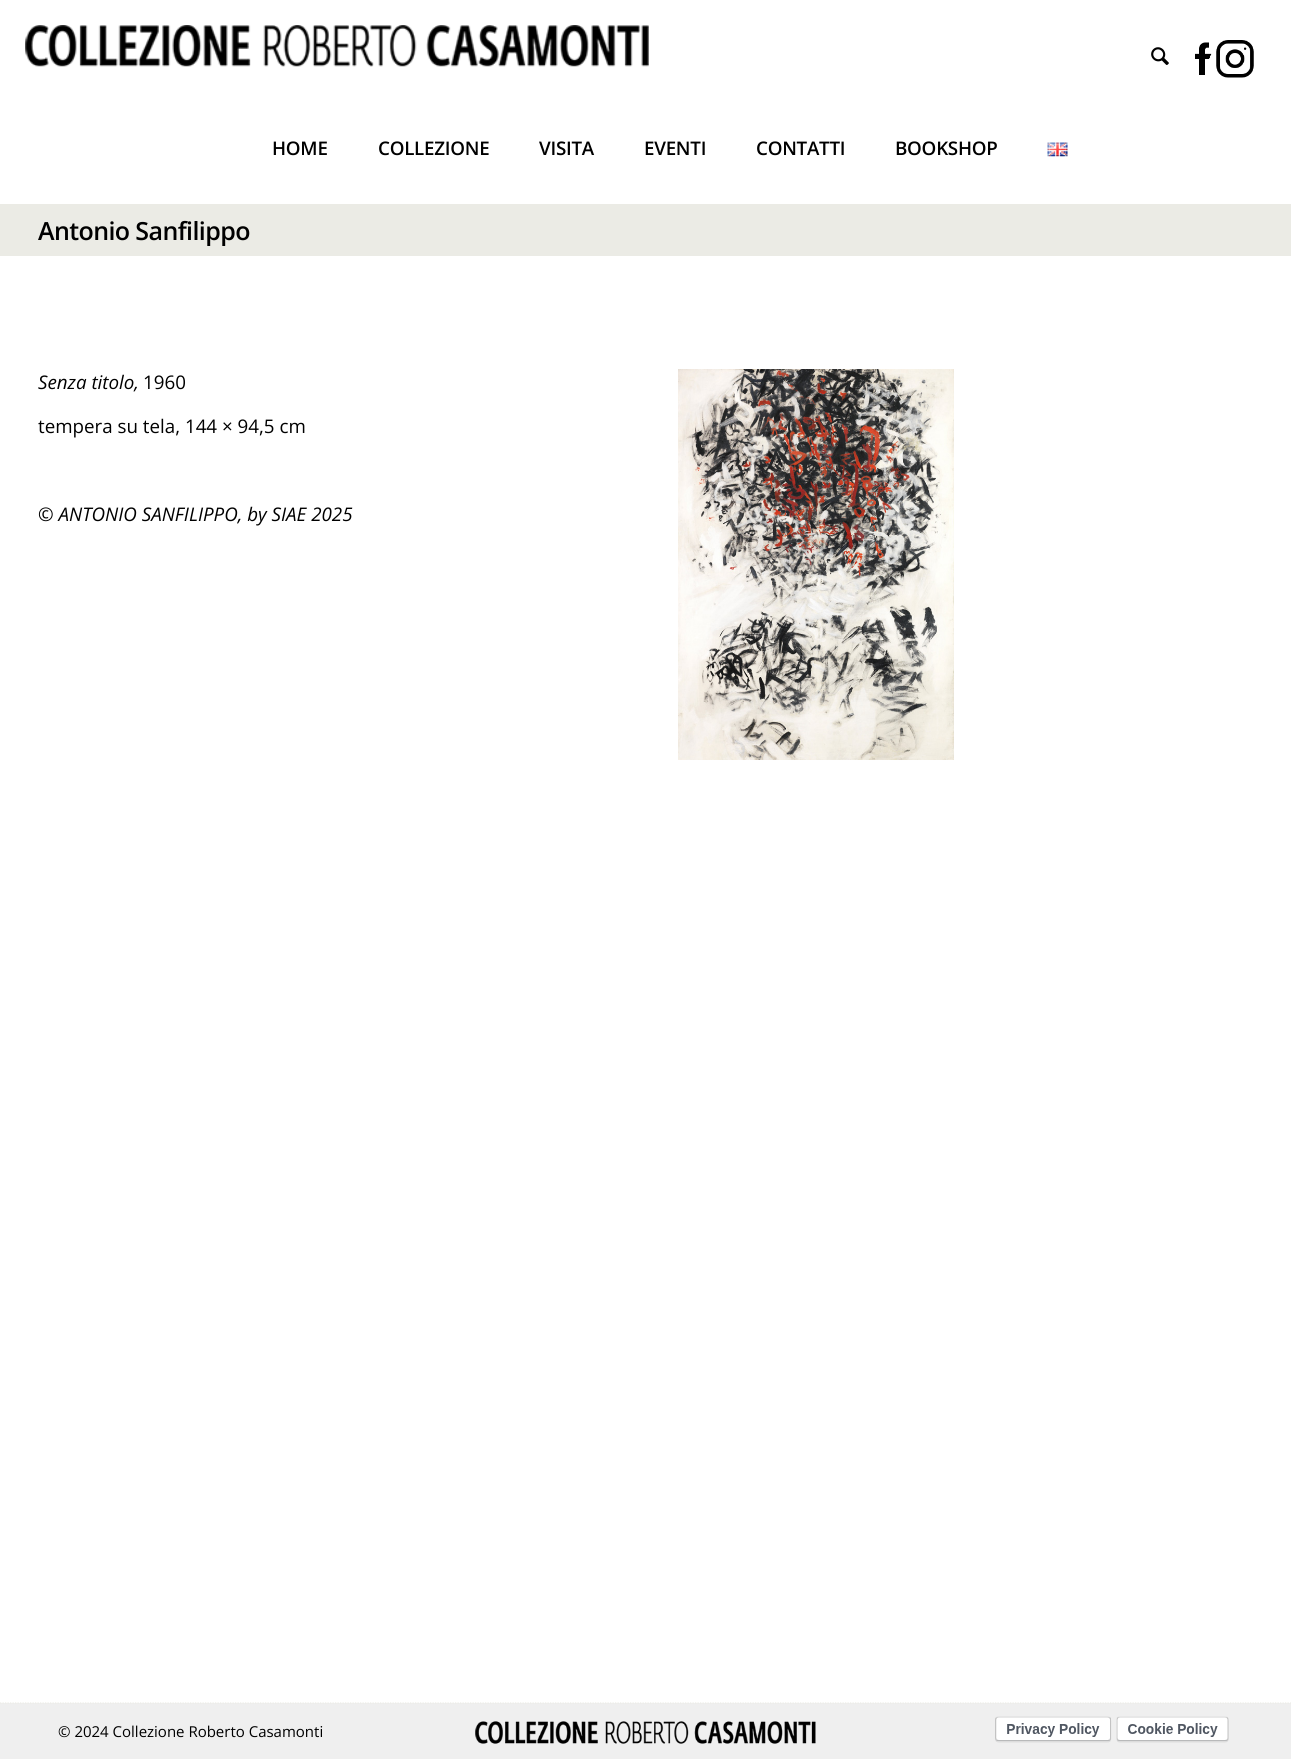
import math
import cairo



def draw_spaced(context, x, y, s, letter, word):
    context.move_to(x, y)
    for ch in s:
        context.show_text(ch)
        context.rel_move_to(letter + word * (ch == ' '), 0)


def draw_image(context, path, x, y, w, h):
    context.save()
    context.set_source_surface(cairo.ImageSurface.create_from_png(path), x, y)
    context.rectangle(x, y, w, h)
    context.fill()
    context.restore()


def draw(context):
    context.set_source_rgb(1, 1, 1)
    context.paint()
    draw_image(context, "images/1.png", 25, 25, 624, 42)
    draw_image(context, "images/2.png", 1151, 47, 18, 18)
    draw_image(context, "images/3.png", 1195, 42, 17, 33)
    draw_image(context, "images/4.png", 1216, 40, 38, 38)
    draw_image(context, "images/5.png", 1047, 142, 21, 15)
    context.set_source_rgb(235 / 255, 235 / 255, 229 / 255)
    context.rectangle(0, 204, 1291, 52)
    context.fill()
    draw_image(context, "images/6.png", 678, 369, 276, 391)
    context.set_source_rgb(239 / 255, 239 / 255, 239 / 255)
    context.rectangle(0, 1703, 1291, 56)
    context.fill()
    context.new_path()
    context.move_to(0, 1703)
    context.line_to(1291, 1703)
    context.set_source_rgb(235 / 255, 235 / 255, 229 / 255)
    context.set_line_width(1.2)
    context.set_dash([1.25, 1.25])
    context.stroke()
    draw_image(context, "images/7.png", 475, 1721, 341, 23)
    draw_image(context, "images/8.png", 995, 1716, 117, 27)
    draw_image(context, "images/9.png", 1116, 1716, 113, 27)
    context.select_font_face("Open Sans SemiBold")
    context.set_font_size(18.75)
    context.set_source_rgb(0, 0, 0)
    draw_spaced(context, 272, 155, "HOME", -0.25, 0)
    draw_spaced(context, 378, 155, "COLLEZIONE", -0.25, 0)
    draw_spaced(context, 539, 155, "VISITA", -0.25, 0)
    draw_spaced(context, 644, 155, "EVENTI", -0.25, 0)
    draw_spaced(context, 756, 155, "CONTATTI", -0.25, 0)
    draw_spaced(context, 895, 155, "BOOKSHOP", -0.25, 0)
    context.set_font_size(25)
    draw_spaced(context, 38, 240, "Antonio Sanfilippo", -0.6, 0)
    context.select_font_face("Open Sans", cairo.FontSlant.ITALIC)
    context.set_font_size(18.75)
    context.move_to(38, 389)
    context.show_text("Senza titolo,")
    context.select_font_face("Open Sans")
    context.move_to(143, 389)
    context.show_text("1960")
    context.move_to(38, 433)
    context.show_text("tempera su tela, 144 × 94,5 cm")
    context.select_font_face("Open Sans", cairo.FontSlant.ITALIC)
    context.move_to(38, 521)
    context.show_text("© ANTONIO SANFILIPPO, by SIAE 2025")
    context.select_font_face("Open Sans")
    context.set_font_size(15)
    context.move_to(58, 1737)
    context.show_text("© 2024 Collezione Roberto Casamonti")


surface = cairo.ImageSurface(cairo.Format.RGB24, 1291, 1759)
context = cairo.Context(surface)
options = cairo.FontOptions()
options.set_hint_metrics(cairo.HintMetrics.OFF)
options.set_hint_style(cairo.HintStyle.NONE)
context.set_font_options(options)
context.set_miter_limit(4)
draw(context)
surface.write_to_png("out.png")
